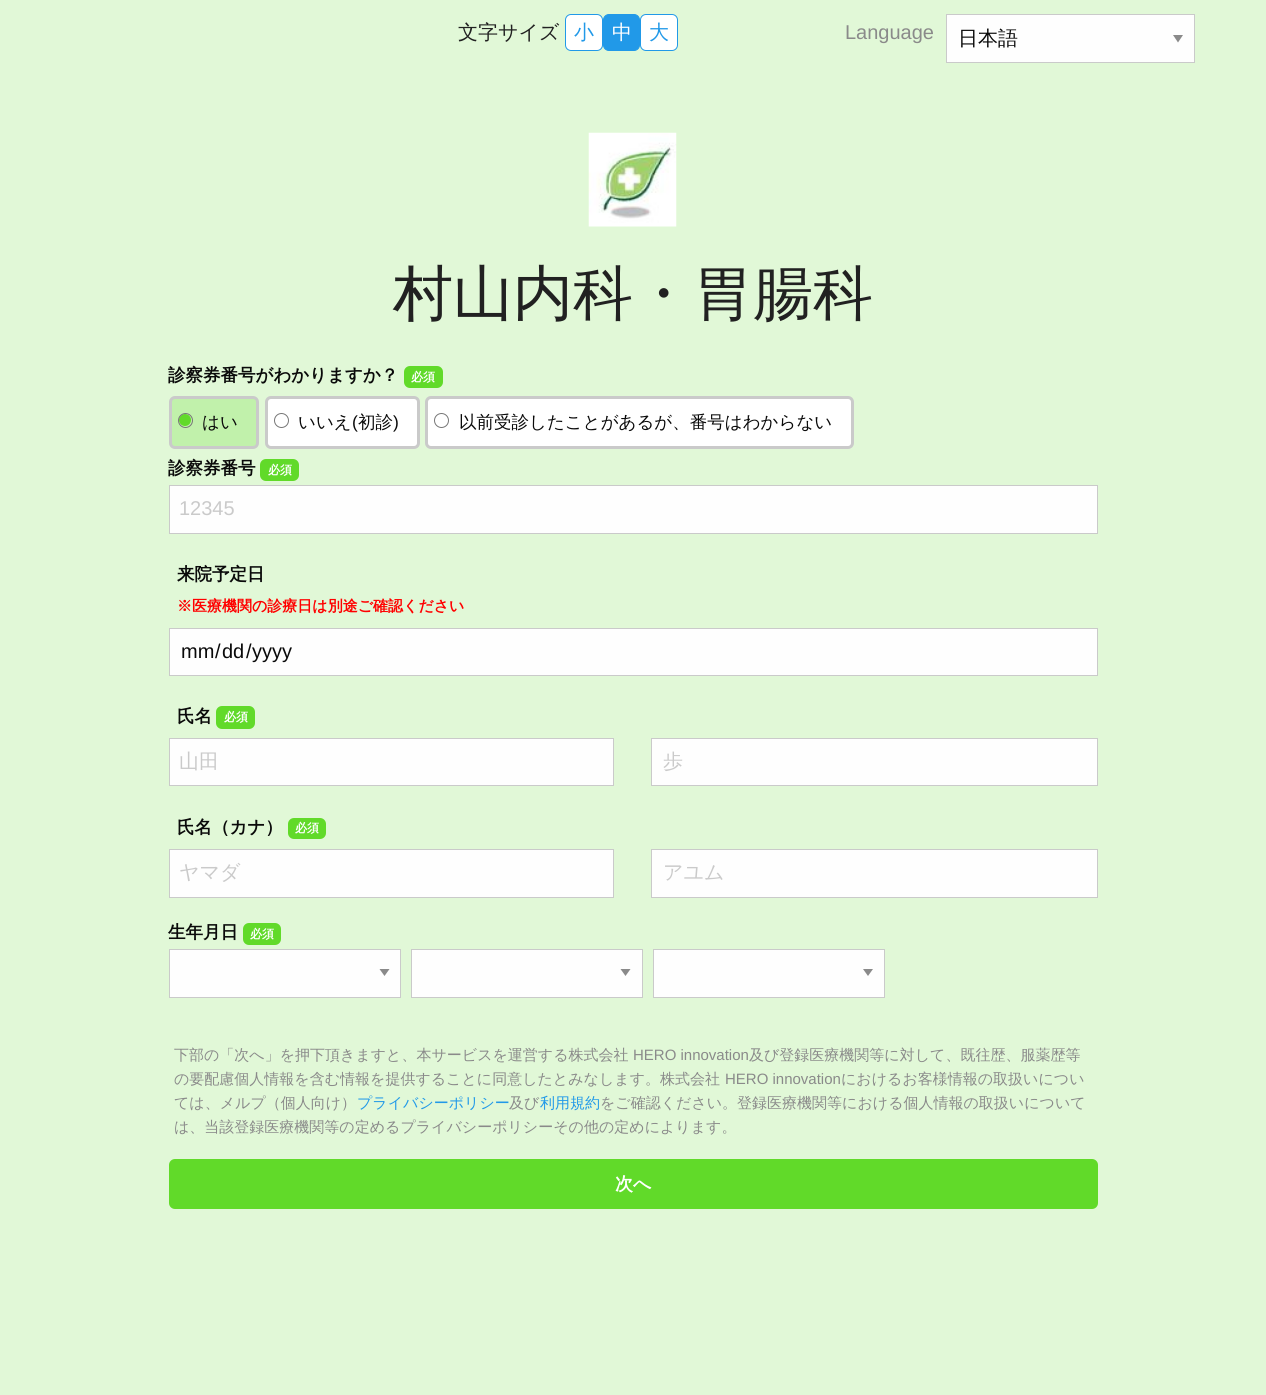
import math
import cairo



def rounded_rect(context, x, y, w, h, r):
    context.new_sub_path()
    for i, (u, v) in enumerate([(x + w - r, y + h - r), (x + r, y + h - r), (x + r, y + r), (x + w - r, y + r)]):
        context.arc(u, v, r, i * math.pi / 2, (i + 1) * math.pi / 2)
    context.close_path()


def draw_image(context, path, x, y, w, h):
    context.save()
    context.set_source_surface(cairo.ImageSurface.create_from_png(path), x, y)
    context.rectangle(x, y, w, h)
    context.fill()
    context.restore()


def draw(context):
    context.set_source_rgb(225 / 255, 248 / 255, 215 / 255)
    context.paint()
    context.set_source_rgb(1, 1, 1)
    rounded_rect(context, 565.5, 14.5, 37, 36, 5.5)
    context.fill_preserve()
    context.set_source_rgb(33 / 255, 153 / 255, 232 / 255)
    context.set_line_width(1)
    context.stroke()
    rounded_rect(context, 603.5, 14.5, 36, 36, 5.5)
    context.fill_preserve()
    context.stroke()
    context.set_source_rgb(1, 1, 1)
    rounded_rect(context, 640.5, 14.5, 37, 36, 5.5)
    context.fill_preserve()
    context.set_source_rgb(33 / 255, 153 / 255, 232 / 255)
    context.stroke()
    context.set_source_rgb(254 / 255, 254 / 255, 254 / 255)
    context.rectangle(947, 15, 247, 47)
    context.fill()
    context.set_source_rgb(138 / 255, 138 / 255, 138 / 255)
    context.new_path()
    context.move_to(1173, 35)
    context.line_to(1183, 35)
    context.line_to(1178, 42.5)
    context.close_path()
    context.fill()
    context.rectangle(946.5, 14.5, 248, 48)
    context.set_source_rgb(202 / 255, 202 / 255, 202 / 255)
    context.stroke()
    draw_image(context, "images/1.png", 588, 132, 89, 95)
    context.set_source_rgb(97 / 255, 218 / 255, 41 / 255)
    rounded_rect(context, 404, 366, 39, 22, 6)
    context.fill()
    context.set_source_rgb(193 / 255, 241 / 255, 171 / 255)
    rounded_rect(context, 170.5, 397.5, 87, 50, 4.5)
    context.fill_preserve()
    context.set_source_rgb(202 / 255, 202 / 255, 202 / 255)
    context.set_line_width(3)
    context.stroke()
    context.set_source_rgb(97 / 255, 218 / 255, 41 / 255)
    context.arc(185, 420, 6, 0, 2 * math.pi)
    context.fill()
    context.arc(185.5, 420.5, 7, 0, 2 * math.pi)
    context.set_source_rgb(119 / 255, 119 / 255, 119 / 255)
    context.set_line_width(1)
    context.stroke()
    context.set_source_rgb(1, 1, 1)
    rounded_rect(context, 266.5, 397.5, 152, 50, 4.5)
    context.fill_preserve()
    context.set_source_rgb(202 / 255, 202 / 255, 202 / 255)
    context.set_line_width(3)
    context.stroke()
    context.arc(281.5, 420.5, 7, 0, 2 * math.pi)
    context.set_source_rgb(119 / 255, 119 / 255, 119 / 255)
    context.set_line_width(1)
    context.stroke()
    context.set_source_rgb(1, 1, 1)
    rounded_rect(context, 426.5, 397.5, 426, 50, 4.5)
    context.fill_preserve()
    context.set_source_rgb(202 / 255, 202 / 255, 202 / 255)
    context.set_line_width(3)
    context.stroke()
    context.arc(441.5, 420.5, 7, 0, 2 * math.pi)
    context.set_source_rgb(119 / 255, 119 / 255, 119 / 255)
    context.set_line_width(1)
    context.stroke()
    context.set_source_rgb(97 / 255, 218 / 255, 41 / 255)
    rounded_rect(context, 260, 459, 39, 22, 6)
    context.fill()
    context.set_source_rgb(254 / 255, 254 / 255, 254 / 255)
    context.rectangle(169.5, 485.5, 928, 48)
    context.fill_preserve()
    context.set_source_rgb(202 / 255, 202 / 255, 202 / 255)
    context.stroke()
    context.set_source_rgb(254 / 255, 254 / 255, 254 / 255)
    context.rectangle(169.5, 628.5, 928, 47)
    context.fill_preserve()
    context.set_source_rgb(202 / 255, 202 / 255, 202 / 255)
    context.stroke()
    context.set_source_rgb(97 / 255, 218 / 255, 41 / 255)
    rounded_rect(context, 216, 706, 39, 23, 6)
    context.fill()
    context.set_source_rgb(254 / 255, 254 / 255, 254 / 255)
    context.rectangle(169.5, 738.5, 444, 47)
    context.fill_preserve()
    context.set_source_rgb(202 / 255, 202 / 255, 202 / 255)
    context.stroke()
    context.set_source_rgb(254 / 255, 254 / 255, 254 / 255)
    context.rectangle(651.5, 738.5, 446, 47)
    context.fill_preserve()
    context.set_source_rgb(202 / 255, 202 / 255, 202 / 255)
    context.stroke()
    context.set_source_rgb(97 / 255, 218 / 255, 41 / 255)
    rounded_rect(context, 288, 818, 38, 21, 6)
    context.fill()
    context.set_source_rgb(254 / 255, 254 / 255, 254 / 255)
    context.rectangle(169.5, 849.5, 444, 48)
    context.fill_preserve()
    context.set_source_rgb(202 / 255, 202 / 255, 202 / 255)
    context.stroke()
    context.set_source_rgb(254 / 255, 254 / 255, 254 / 255)
    context.rectangle(651.5, 849.5, 446, 48)
    context.fill_preserve()
    context.set_source_rgb(202 / 255, 202 / 255, 202 / 255)
    context.stroke()
    context.set_source_rgb(97 / 255, 218 / 255, 41 / 255)
    rounded_rect(context, 243, 923, 38, 22, 6)
    context.fill()
    context.set_source_rgb(254 / 255, 254 / 255, 254 / 255)
    context.rectangle(170, 950, 230, 47)
    context.fill()
    context.set_source_rgb(138 / 255, 138 / 255, 138 / 255)
    context.new_path()
    context.move_to(379.5, 969)
    context.line_to(389.5, 969)
    context.line_to(384.5, 976)
    context.close_path()
    context.fill()
    context.rectangle(169.5, 949.5, 231, 48)
    context.set_source_rgb(202 / 255, 202 / 255, 202 / 255)
    context.stroke()
    context.set_source_rgb(254 / 255, 254 / 255, 254 / 255)
    context.rectangle(412, 950, 230, 47)
    context.fill()
    context.set_source_rgb(138 / 255, 138 / 255, 138 / 255)
    context.new_path()
    context.move_to(620.5, 969)
    context.line_to(630.5, 969)
    context.line_to(625.5, 976)
    context.close_path()
    context.fill()
    context.rectangle(411.5, 949.5, 231, 48)
    context.set_source_rgb(202 / 255, 202 / 255, 202 / 255)
    context.stroke()
    context.set_source_rgb(254 / 255, 254 / 255, 254 / 255)
    context.rectangle(654, 950, 230, 47)
    context.fill()
    context.set_source_rgb(138 / 255, 138 / 255, 138 / 255)
    context.new_path()
    context.move_to(863, 969)
    context.line_to(873, 969)
    context.line_to(868, 976)
    context.close_path()
    context.fill()
    context.rectangle(653.5, 949.5, 231, 48)
    context.set_source_rgb(202 / 255, 202 / 255, 202 / 255)
    context.stroke()
    context.set_source_rgb(97 / 255, 218 / 255, 41 / 255)
    rounded_rect(context, 169, 1159, 929, 50, 6)
    context.fill()
    context.select_font_face("WenQuanYi Zen Hei Medium")
    context.set_font_size(20)
    context.set_source_rgb(33 / 255, 33 / 255, 33 / 255)
    context.move_to(458, 39)
    context.show_text("文字サイズ")
    context.set_source_rgb(33 / 255, 153 / 255, 232 / 255)
    context.move_to(574, 39)
    context.show_text("小")
    context.set_source_rgb(1, 1, 1)
    context.move_to(612, 39)
    context.show_text("中")
    context.set_source_rgb(33 / 255, 153 / 255, 232 / 255)
    context.move_to(649, 39)
    context.show_text("大")
    context.select_font_face("Liberation Sans")
    context.set_source_rgb(138 / 255, 138 / 255, 138 / 255)
    context.move_to(845, 39)
    context.show_text("Language")
    context.select_font_face("WenQuanYi Zen Hei Medium")
    context.set_source_rgb(10 / 255, 10 / 255, 10 / 255)
    context.move_to(958, 45)
    context.show_text("日本語")
    context.set_font_size(60)
    context.set_source_rgb(33 / 255, 33 / 255, 33 / 255)
    context.move_to(393, 314)
    context.show_text("村山内科・胃腸科")
    context.select_font_face("WenQuanYi Zen Hei", cairo.FontSlant.NORMAL, cairo.FontWeight.BOLD)
    context.set_font_size(17.5)
    context.set_source_rgb(10 / 255, 10 / 255, 10 / 255)
    context.move_to(168, 381)
    context.show_text("診察券番号がわかりますか？")
    context.set_font_size(12)
    context.set_source_rgb(1, 1, 1)
    context.move_to(411, 381)
    context.show_text("必須")
    context.select_font_face("WenQuanYi Zen Hei Medium")
    context.set_font_size(17.5)
    context.set_source_rgb(10 / 255, 10 / 255, 10 / 255)
    context.move_to(202, 428)
    context.show_text("はい")
    context.move_to(298, 428)
    context.show_text("いいえ")
    context.select_font_face("Liberation Sans")
    context.move_to(352, 428)
    context.show_text("(")
    context.select_font_face("WenQuanYi Zen Hei Medium")
    context.move_to(358, 428)
    context.show_text("初診")
    context.select_font_face("Liberation Sans")
    context.move_to(393, 428)
    context.show_text(")")
    context.select_font_face("WenQuanYi Zen Hei Medium")
    context.move_to(459, 428)
    context.show_text("以前受診したことがあるが、番号はわからない")
    context.select_font_face("WenQuanYi Zen Hei", cairo.FontSlant.NORMAL, cairo.FontWeight.BOLD)
    context.move_to(168, 474)
    context.show_text("診察券番号")
    context.set_font_size(12)
    context.set_source_rgb(1, 1, 1)
    context.move_to(268, 474)
    context.show_text("必須")
    context.select_font_face("Liberation Sans")
    context.set_font_size(20)
    context.set_source_rgb(202 / 255, 202 / 255, 202 / 255)
    context.move_to(179, 515)
    context.show_text("12345")
    context.select_font_face("WenQuanYi Zen Hei", cairo.FontSlant.NORMAL, cairo.FontWeight.BOLD)
    context.set_font_size(17.5)
    context.set_source_rgb(10 / 255, 10 / 255, 10 / 255)
    context.move_to(177, 580)
    context.show_text("来院予定日")
    context.set_font_size(15)
    context.set_source_rgb(1, 0, 0)
    context.move_to(177, 611)
    context.show_text("※医療機関の診療日は別途ご確認ください")
    context.select_font_face("Liberation Sans")
    context.set_font_size(20)
    context.set_source_rgb(10 / 255, 10 / 255, 10 / 255)
    context.move_to(181, 658)
    context.show_text("mm")
    context.move_to(215, 658)
    context.show_text("/")
    context.move_to(222, 658)
    context.show_text("dd")
    context.move_to(246, 658)
    context.show_text("/")
    context.move_to(252, 658)
    context.show_text("yyyy")
    context.select_font_face("WenQuanYi Zen Hei", cairo.FontSlant.NORMAL, cairo.FontWeight.BOLD)
    context.set_font_size(17.5)
    context.move_to(177, 722)
    context.show_text("氏名")
    context.set_font_size(12)
    context.set_source_rgb(1, 1, 1)
    context.move_to(224, 721)
    context.show_text("必須")
    context.select_font_face("WenQuanYi Zen Hei Medium")
    context.set_font_size(20)
    context.set_source_rgb(202 / 255, 202 / 255, 202 / 255)
    context.move_to(179, 768)
    context.show_text("山田")
    context.move_to(663, 768)
    context.show_text("歩")
    context.select_font_face("WenQuanYi Zen Hei", cairo.FontSlant.NORMAL, cairo.FontWeight.BOLD)
    context.set_font_size(17.5)
    context.set_source_rgb(10 / 255, 10 / 255, 10 / 255)
    context.move_to(177, 833)
    context.show_text("氏名（カナ）")
    context.set_font_size(12)
    context.set_source_rgb(1, 1, 1)
    context.move_to(295, 832)
    context.show_text("必須")
    context.select_font_face("WenQuanYi Zen Hei Medium")
    context.set_font_size(20)
    context.set_source_rgb(202 / 255, 202 / 255, 202 / 255)
    context.move_to(179, 879)
    context.show_text("ヤマダ")
    context.move_to(663, 879)
    context.show_text("アユム")
    context.select_font_face("WenQuanYi Zen Hei", cairo.FontSlant.NORMAL, cairo.FontWeight.BOLD)
    context.set_font_size(17.5)
    context.set_source_rgb(10 / 255, 10 / 255, 10 / 255)
    context.move_to(168, 938)
    context.show_text("生年月日")
    context.set_font_size(12)
    context.set_source_rgb(1, 1, 1)
    context.move_to(250, 938)
    context.show_text("必須")
    context.select_font_face("WenQuanYi Zen Hei Medium")
    context.set_font_size(15)
    context.set_source_rgb(138 / 255, 138 / 255, 138 / 255)
    context.move_to(174, 1060)
    context.show_text("下部の「次へ」を押下頂きますと、本サービスを運営する株式会社")
    context.select_font_face("Liberation Sans")
    context.move_to(633, 1060)
    context.show_text("HERO innovation")
    context.select_font_face("WenQuanYi Zen Hei Medium")
    context.move_to(749, 1060)
    context.show_text("及び登録医療機関等に対して、既往歴、服薬歴等")
    context.move_to(174, 1084)
    context.show_text("の要配慮個人情報を含む情報を提供することに同意したとみなします。株式会社")
    context.select_font_face("Liberation Sans")
    context.move_to(725, 1084)
    context.show_text("HERO innovation")
    context.select_font_face("WenQuanYi Zen Hei Medium")
    context.move_to(841, 1084)
    context.show_text("におけるお客様情報の取扱いについ")
    context.move_to(174, 1108)
    context.show_text("ては、メルプ（個人向け）")
    context.set_source_rgb(33 / 255, 153 / 255, 232 / 255)
    context.move_to(357, 1108)
    context.show_text("プライバシーポリシー")
    context.set_source_rgb(138 / 255, 138 / 255, 138 / 255)
    context.move_to(509, 1108)
    context.show_text("及び")
    context.set_source_rgb(33 / 255, 153 / 255, 232 / 255)
    context.move_to(540, 1108)
    context.show_text("利用規約")
    context.set_source_rgb(138 / 255, 138 / 255, 138 / 255)
    context.move_to(600, 1108)
    context.show_text("をご確認ください。登録医療機関等における個人情報の取扱いについて")
    context.move_to(174, 1132)
    context.show_text("は、当該登録医療機関等の定めるプライバシーポリシーその他の定めによります。")
    context.select_font_face("WenQuanYi Zen Hei", cairo.FontSlant.NORMAL, cairo.FontWeight.BOLD)
    context.set_font_size(18)
    context.set_source_rgb(1, 1, 1)
    context.move_to(615, 1190)
    context.show_text("次へ")


surface = cairo.ImageSurface(cairo.Format.RGB24, 1266, 1395)
context = cairo.Context(surface)
options = cairo.FontOptions()
options.set_hint_metrics(cairo.HintMetrics.OFF)
options.set_hint_style(cairo.HintStyle.NONE)
context.set_font_options(options)
context.set_miter_limit(4)
draw(context)
surface.write_to_png("out.png")
